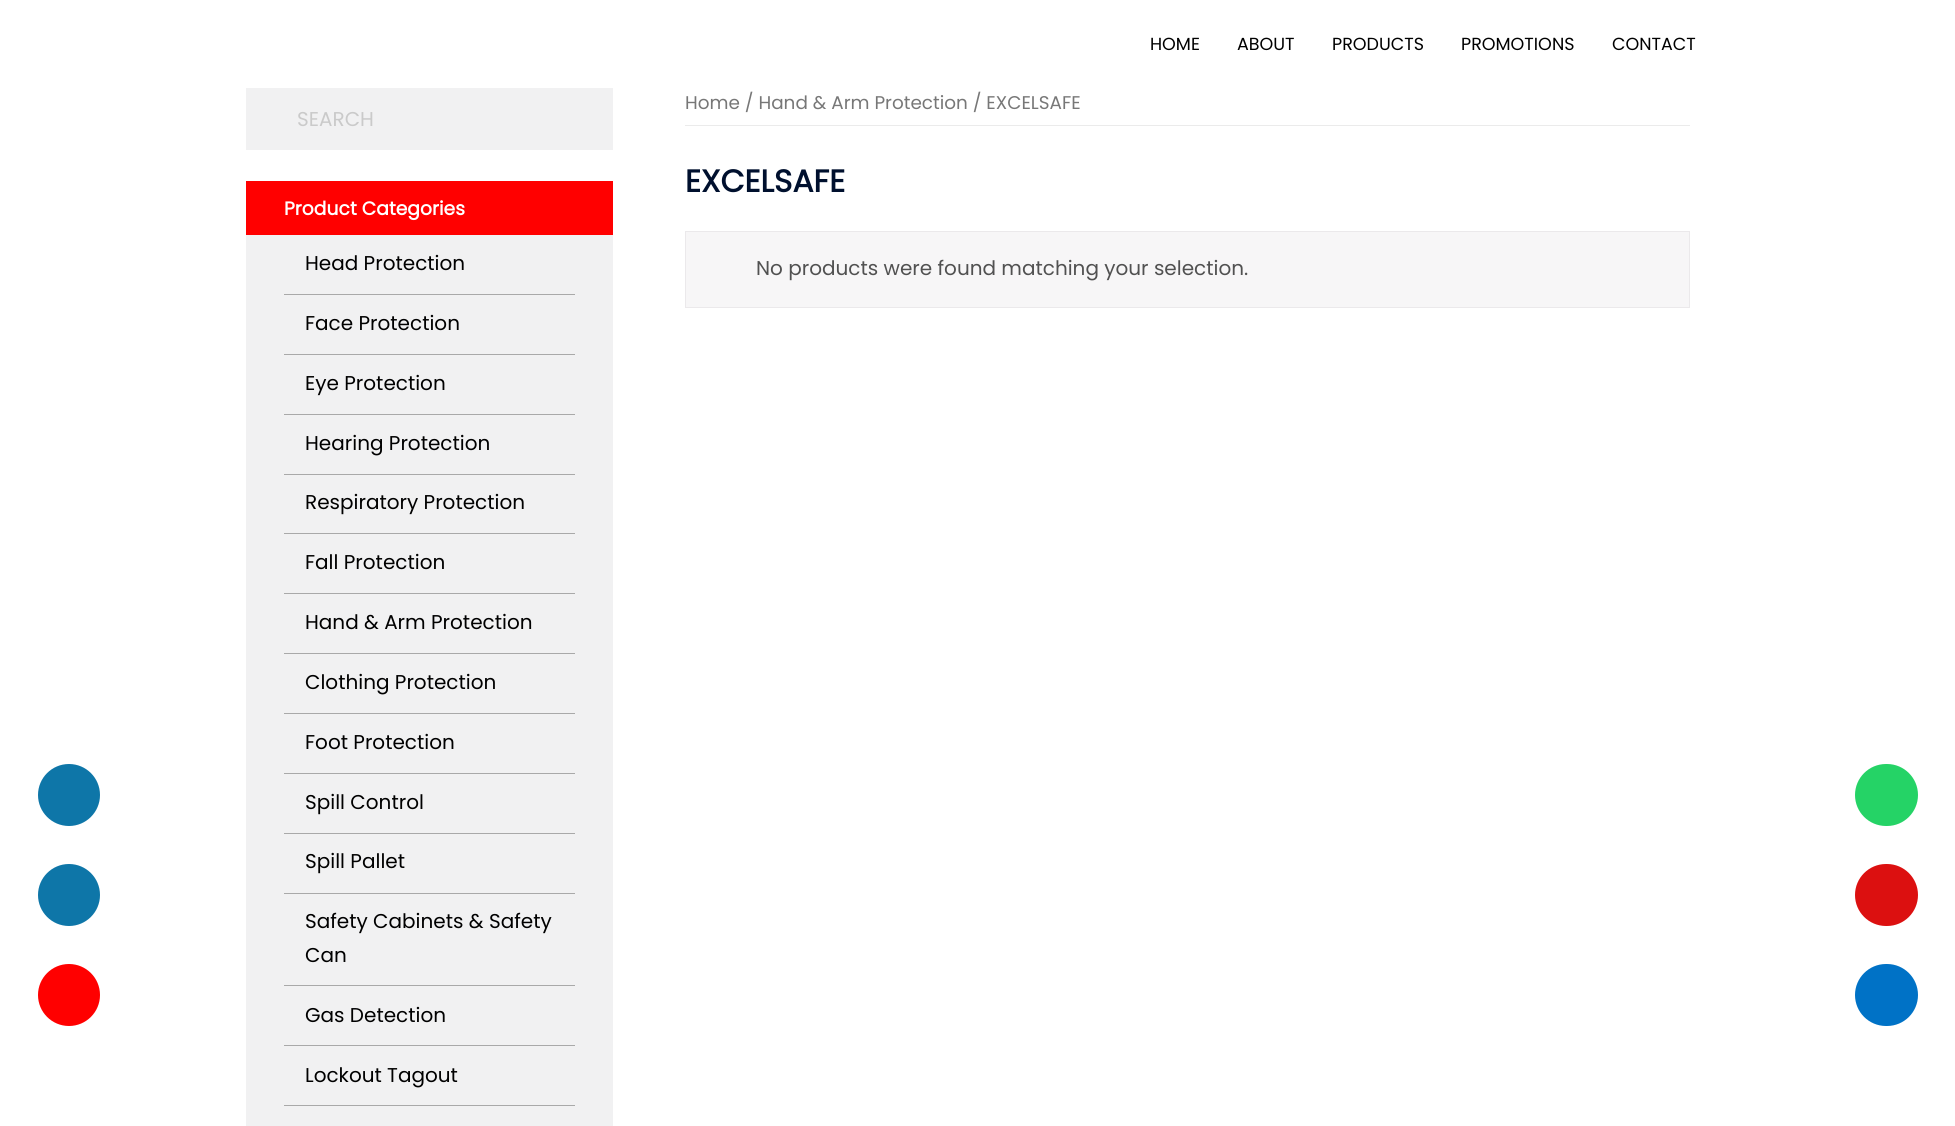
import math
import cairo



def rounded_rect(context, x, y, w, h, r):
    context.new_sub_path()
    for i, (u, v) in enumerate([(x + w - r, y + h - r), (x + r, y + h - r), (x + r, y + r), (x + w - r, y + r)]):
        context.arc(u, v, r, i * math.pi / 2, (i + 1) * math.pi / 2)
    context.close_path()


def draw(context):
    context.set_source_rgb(1, 1, 1)
    context.paint()
    context.set_source_rgb(241 / 255, 241 / 255, 242 / 255)
    context.rectangle(246, 88, 367, 62)
    context.fill()
    context.rectangle(246, 235, 367, 891)
    context.fill()
    context.set_source_rgb(1, 0, 0)
    context.rectangle(246, 181, 367, 54)
    context.fill()
    context.set_source_rgb(169 / 255, 169 / 255, 169 / 255)
    context.rectangle(284, 294, 291, 1)
    context.fill()
    context.rectangle(284, 354, 291, 1)
    context.fill()
    context.rectangle(284, 414, 291, 1)
    context.fill()
    context.rectangle(284, 474, 291, 1)
    context.fill()
    context.rectangle(284, 533, 291, 1)
    context.fill()
    context.rectangle(284, 593, 291, 1)
    context.fill()
    context.rectangle(284, 653, 291, 1)
    context.fill()
    context.rectangle(284, 713, 291, 1)
    context.fill()
    context.rectangle(284, 773, 291, 1)
    context.fill()
    context.rectangle(284, 833, 291, 1)
    context.fill()
    context.rectangle(284, 893, 291, 1)
    context.fill()
    context.rectangle(284, 985, 291, 1)
    context.fill()
    context.rectangle(284, 1045, 291, 1)
    context.fill()
    context.rectangle(284, 1105, 291, 1)
    context.fill()
    context.set_source_rgb(235 / 255, 235 / 255, 235 / 255)
    context.rectangle(685, 125, 1005, 1)
    context.fill()
    context.set_source_rgb(247 / 255, 246 / 255, 247 / 255)
    context.rectangle(685.5, 231.5, 1004, 76)
    context.fill_preserve()
    context.set_source_rgb(235 / 255, 233 / 255, 235 / 255)
    context.set_line_width(1)
    context.stroke()
    context.set_source_rgb(14 / 255, 118 / 255, 168 / 255)
    context.arc(69, 795, 31, 0, 2 * math.pi)
    context.fill()
    context.set_source_rgb(37 / 255, 211 / 255, 102 / 255)
    rounded_rect(context, 1855, 764, 63, 62, 31)
    context.fill()
    context.set_source_rgb(14 / 255, 118 / 255, 168 / 255)
    context.arc(69, 895, 31, 0, 2 * math.pi)
    context.fill()
    context.set_source_rgb(220 / 255, 16 / 255, 16 / 255)
    rounded_rect(context, 1855, 864, 63, 62, 31)
    context.fill()
    context.set_source_rgb(1, 0, 0)
    context.arc(69, 995, 31, 0, 2 * math.pi)
    context.fill()
    context.set_source_rgb(0, 114 / 255, 198 / 255)
    rounded_rect(context, 1855, 964, 63, 62, 31)
    context.fill()
    context.select_font_face("Poppins")
    context.set_font_size(17.5)
    context.set_source_rgb(0, 0, 0)
    context.move_to(1150, 50)
    context.show_text("HOME")
    context.move_to(1237, 50)
    context.show_text("ABOUT")
    context.move_to(1332, 50)
    context.show_text("PRODUCTS")
    context.move_to(1461, 50)
    context.show_text("PROMOTIONS")
    context.move_to(1612, 50)
    context.show_text("CONTACT")
    context.set_font_size(20)
    context.set_source_rgb(202 / 255, 202 / 255, 202 / 255)
    context.move_to(297, 126)
    context.show_text("SEARCH")
    context.select_font_face("Poppins", cairo.FontSlant.NORMAL, cairo.FontWeight.BOLD)
    context.set_font_size(18.75)
    context.set_source_rgb(1, 1, 1)
    context.move_to(284, 215)
    context.show_text("Product Categories")
    context.select_font_face("Poppins")
    context.set_font_size(20)
    context.set_source_rgb(0, 0, 0)
    context.move_to(305, 270)
    context.show_text("Head Protection")
    context.move_to(305, 330)
    context.show_text("Face Protection")
    context.move_to(305, 390)
    context.show_text("Eye Protection")
    context.move_to(305, 450)
    context.show_text("Hearing Protection")
    context.move_to(305, 509)
    context.show_text("Respiratory Protection")
    context.move_to(305, 569)
    context.show_text("Fall Protection")
    context.move_to(305, 629)
    context.show_text("Hand & Arm Protection")
    context.move_to(305, 689)
    context.show_text("Clothing Protection")
    context.move_to(305, 749)
    context.show_text("Foot Protection")
    context.move_to(305, 809)
    context.show_text("Spill Control")
    context.move_to(305, 868)
    context.show_text("Spill Pallet")
    context.move_to(305, 928)
    context.show_text("Safety Cabinets & Safety")
    context.move_to(305, 962)
    context.show_text("Can")
    context.move_to(305, 1022)
    context.show_text("Gas Detection")
    context.move_to(305, 1082)
    context.show_text("Lockout Tagout")
    context.set_font_size(18.4)
    context.set_source_rgb(119 / 255, 119 / 255, 119 / 255)
    context.move_to(685, 109)
    context.show_text("Home / Hand & Arm Protection / EXCELSAFE")
    context.select_font_face("Poppins", cairo.FontSlant.NORMAL, cairo.FontWeight.BOLD)
    context.set_font_size(31.25)
    context.set_source_rgb(0, 16 / 255, 46 / 255)
    context.move_to(685, 192)
    context.show_text("EXCELSAFE")
    context.select_font_face("Poppins")
    context.set_font_size(20)
    context.set_source_rgb(81 / 255, 81 / 255, 81 / 255)
    context.move_to(756, 275)
    context.show_text("No products were found matching your selection.")


surface = cairo.ImageSurface(cairo.Format.RGB24, 1955, 1126)
context = cairo.Context(surface)
options = cairo.FontOptions()
options.set_hint_metrics(cairo.HintMetrics.OFF)
options.set_hint_style(cairo.HintStyle.NONE)
context.set_font_options(options)
context.set_miter_limit(4)
draw(context)
surface.write_to_png("out.png")
